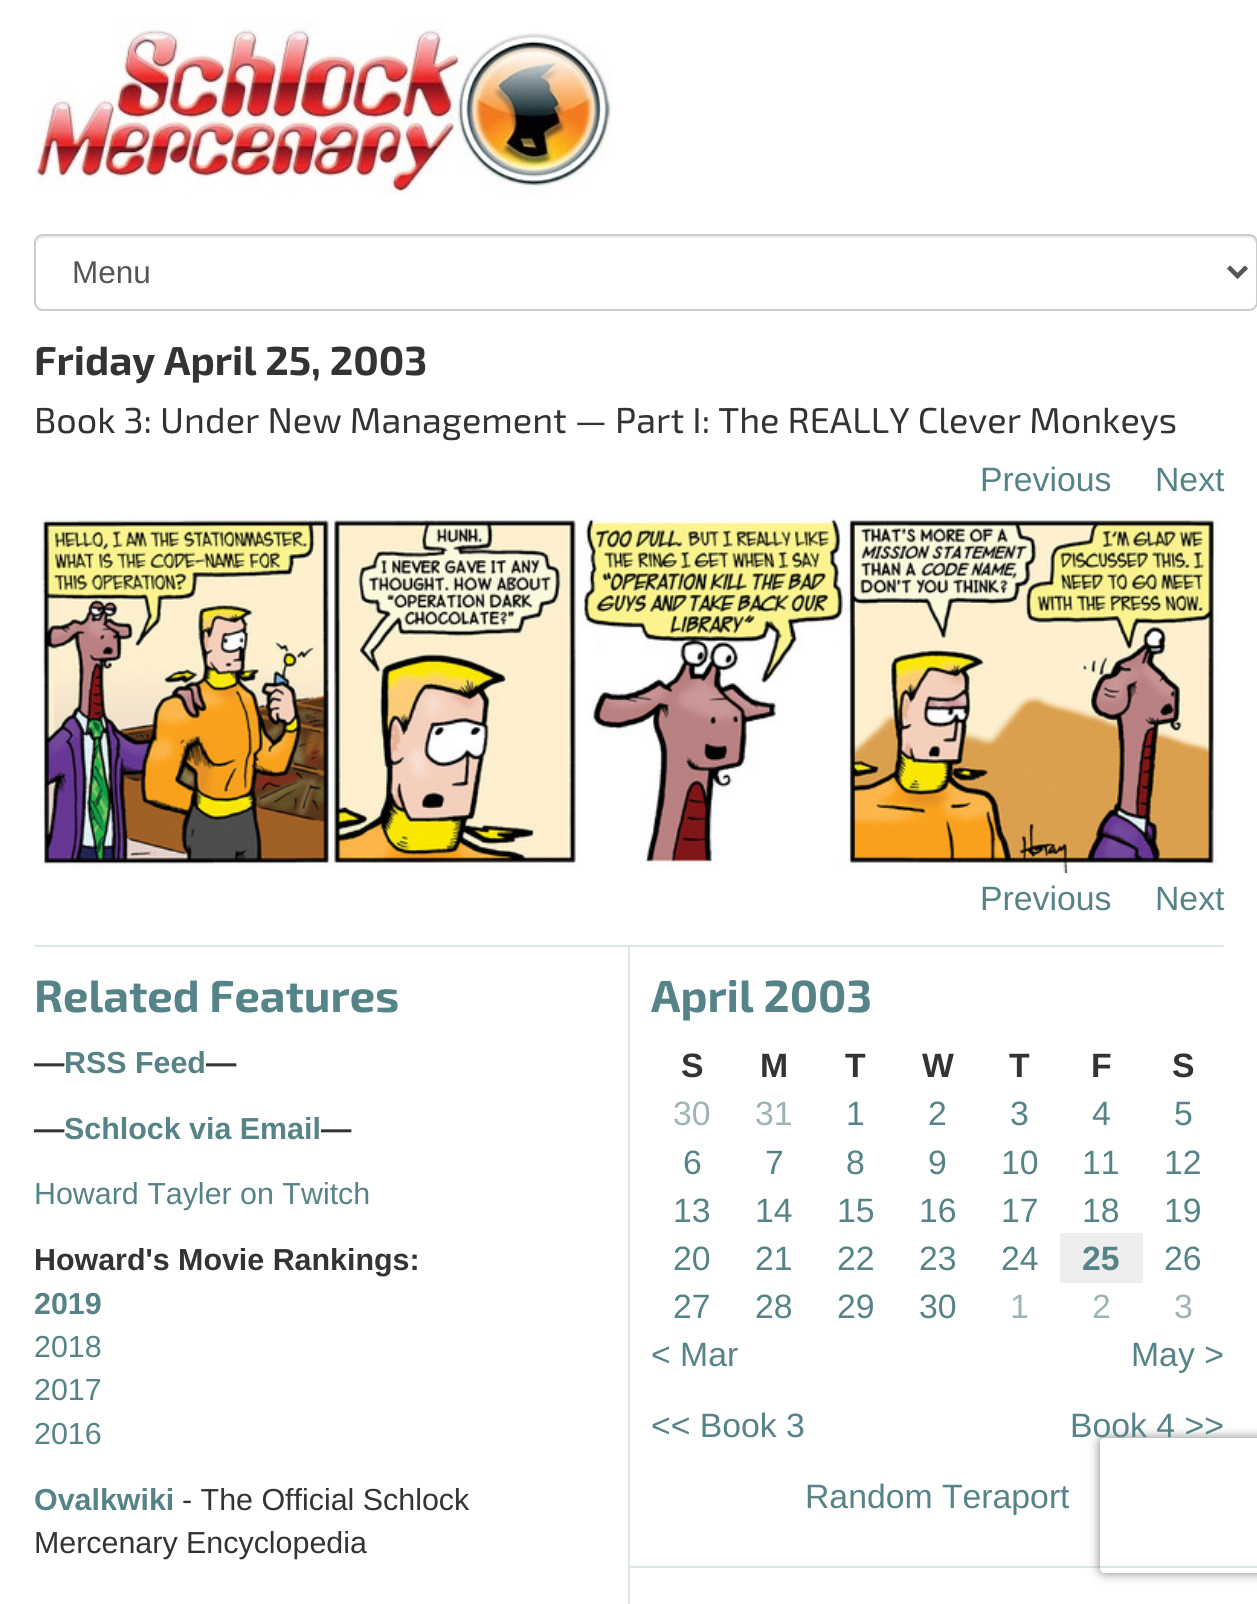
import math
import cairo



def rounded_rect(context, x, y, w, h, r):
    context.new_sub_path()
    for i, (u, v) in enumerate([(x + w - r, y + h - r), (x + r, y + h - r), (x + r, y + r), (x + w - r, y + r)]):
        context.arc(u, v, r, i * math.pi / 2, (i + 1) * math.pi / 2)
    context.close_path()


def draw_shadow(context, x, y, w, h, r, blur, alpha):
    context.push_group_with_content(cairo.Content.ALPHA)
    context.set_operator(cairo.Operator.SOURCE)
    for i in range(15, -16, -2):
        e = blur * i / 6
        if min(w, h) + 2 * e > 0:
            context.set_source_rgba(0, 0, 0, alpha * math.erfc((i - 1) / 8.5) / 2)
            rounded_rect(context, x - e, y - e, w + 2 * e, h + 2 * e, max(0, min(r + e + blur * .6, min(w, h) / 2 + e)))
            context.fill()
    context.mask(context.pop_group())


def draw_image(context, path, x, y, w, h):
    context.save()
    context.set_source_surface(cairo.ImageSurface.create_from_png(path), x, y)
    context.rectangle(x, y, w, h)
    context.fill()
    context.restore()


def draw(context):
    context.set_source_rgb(1, 1, 1)
    context.paint()
    draw_image(context, "images/1.png", 34, 22, 578, 173)
    context.set_source_rgb(236 / 255, 236 / 255, 236 / 255)
    context.new_path()
    context.move_to(43, 238)
    context.line_to(1249, 238)
    context.curve_to(1252, 238, 1256, 242, 1256, 245)
    context.line_to(1256, 243)
    context.curve_to(1256, 239, 1253, 236, 1249, 236)
    context.line_to(43, 236)
    context.curve_to(39, 236, 36, 239, 36, 243)
    context.line_to(36, 245)
    context.curve_to(36, 242, 39, 238, 43, 238)
    context.close_path()
    context.fill()
    rounded_rect(context, 35, 235, 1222, 75, 8)
    context.set_source_rgb(204 / 255, 204 / 255, 204 / 255)
    context.stroke()
    context.new_path()
    context.move_to(1228.5, 267)
    context.line_to(1237.5, 276)
    context.line_to(1246.5, 267)
    context.set_source_rgb(85 / 255, 85 / 255, 85 / 255)
    context.set_line_width(4.5)
    context.stroke()
    draw_image(context, "images/2.png", 40, 516, 1178, 357)
    context.set_source_rgb(221 / 255, 230 / 255, 231 / 255)
    context.rectangle(34, 945, 1190, 2)
    context.fill()
    context.rectangle(628, 947, 2, 657)
    context.fill()
    context.rectangle(630, 1566, 627, 2)
    context.fill()
    context.set_source_rgb(238 / 255, 238 / 255, 238 / 255)
    context.rectangle(1060, 1233, 83, 50)
    context.fill()
    context.save()
    context.set_fill_rule(cairo.FillRule.EVEN_ODD)
    context.new_path()
    context.move_to(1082, 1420)
    context.line_to(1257, 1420)
    context.line_to(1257, 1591)
    context.line_to(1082, 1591)
    context.close_path()
    context.move_to(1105, 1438)
    context.line_to(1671, 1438)
    context.curve_to(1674, 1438, 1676, 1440, 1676, 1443)
    context.line_to(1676, 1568)
    context.curve_to(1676, 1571, 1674, 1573, 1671, 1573)
    context.line_to(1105, 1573)
    context.curve_to(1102, 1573, 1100, 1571, 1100, 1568)
    context.line_to(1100, 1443)
    context.curve_to(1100, 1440, 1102, 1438, 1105, 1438)
    context.close_path()
    context.clip()
    context.set_source_rgb(128 / 255, 128 / 255, 128 / 255)
    draw_shadow(context, 1100, 1438, 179, 135, 5, 5.5, 1)
    context.restore()
    context.select_font_face("Liberation Sans")
    context.set_font_size(31.5)
    context.set_source_rgb(85 / 255, 85 / 255, 85 / 255)
    context.move_to(72, 283)
    context.show_text("Menu")
    context.select_font_face("Exo 2", cairo.FontSlant.NORMAL, cairo.FontWeight.BOLD)
    context.set_font_size(40.5)
    context.set_source_rgb(51 / 255, 51 / 255, 51 / 255)
    context.move_to(34, 375)
    context.show_text("Friday April 25, 2003")
    context.select_font_face("Exo 2")
    context.set_font_size(36)
    context.move_to(34, 433)
    context.show_text("Book 3: Under New Management — Part I: The REALLY Clever Monkeys")
    context.select_font_face("Liberation Sans")
    context.set_font_size(33.75)
    context.set_source_rgb(86 / 255, 131 / 255, 135 / 255)
    context.move_to(980, 491)
    context.show_text("Previous")
    context.move_to(1155, 491)
    context.show_text("Next")
    context.move_to(980, 910)
    context.show_text("Previous")
    context.move_to(1155, 910)
    context.show_text("Next")
    context.select_font_face("Exo 2", cairo.FontSlant.NORMAL, cairo.FontWeight.BOLD)
    context.set_font_size(45)
    context.move_to(34, 1012)
    context.show_text("Related Features")
    context.select_font_face("Liberation Sans", cairo.FontSlant.NORMAL, cairo.FontWeight.BOLD)
    context.set_font_size(30.4)
    context.set_source_rgb(51 / 255, 51 / 255, 51 / 255)
    context.move_to(34, 1073)
    context.show_text("—")
    context.set_source_rgb(86 / 255, 131 / 255, 135 / 255)
    context.move_to(64, 1073)
    context.show_text("RSS Feed")
    context.set_source_rgb(51 / 255, 51 / 255, 51 / 255)
    context.move_to(206, 1073)
    context.show_text("—")
    context.move_to(34, 1139)
    context.show_text("—")
    context.set_source_rgb(86 / 255, 131 / 255, 135 / 255)
    context.move_to(64, 1139)
    context.show_text("Schlock via Email")
    context.set_source_rgb(51 / 255, 51 / 255, 51 / 255)
    context.move_to(321, 1139)
    context.show_text("—")
    context.select_font_face("Liberation Sans")
    context.set_source_rgb(86 / 255, 131 / 255, 135 / 255)
    context.move_to(34, 1204)
    context.show_text("Howard Tayler on Twitch")
    context.select_font_face("Liberation Sans", cairo.FontSlant.NORMAL, cairo.FontWeight.BOLD)
    context.set_source_rgb(51 / 255, 51 / 255, 51 / 255)
    context.move_to(34, 1270)
    context.show_text("Howard's Movie Rankings:")
    context.set_source_rgb(86 / 255, 131 / 255, 135 / 255)
    context.move_to(34, 1314)
    context.show_text("2019")
    context.select_font_face("Liberation Sans")
    context.move_to(34, 1357)
    context.show_text("2018")
    context.move_to(34, 1400)
    context.show_text("2017")
    context.move_to(34, 1444)
    context.show_text("2016")
    context.select_font_face("Liberation Sans", cairo.FontSlant.NORMAL, cairo.FontWeight.BOLD)
    context.move_to(34, 1510)
    context.show_text("Ovalkwiki")
    context.select_font_face("Liberation Sans")
    context.set_source_rgb(51 / 255, 51 / 255, 51 / 255)
    context.move_to(182, 1510)
    context.show_text("- The Official Schlock")
    context.move_to(34, 1553)
    context.show_text("Mercenary Encyclopedia")
    context.select_font_face("Exo 2", cairo.FontSlant.NORMAL, cairo.FontWeight.BOLD)
    context.set_font_size(45)
    context.set_source_rgb(86 / 255, 131 / 255, 135 / 255)
    context.move_to(651, 1012)
    context.show_text("April 2003")
    context.select_font_face("Liberation Sans", cairo.FontSlant.NORMAL, cairo.FontWeight.BOLD)
    context.set_font_size(33.75)
    context.set_source_rgb(51 / 255, 51 / 255, 51 / 255)
    context.move_to(681, 1077)
    context.show_text("S")
    context.move_to(760, 1077)
    context.show_text("M")
    context.move_to(845, 1077)
    context.show_text("T")
    context.move_to(922, 1077)
    context.show_text("W")
    context.move_to(1009, 1077)
    context.show_text("T")
    context.move_to(1091, 1077)
    context.show_text("F")
    context.move_to(1172, 1077)
    context.show_text("S")
    context.select_font_face("Liberation Sans")
    context.set_source_rgb(158 / 255, 181 / 255, 183 / 255)
    context.move_to(673, 1125)
    context.show_text("30")
    context.move_to(755, 1125)
    context.show_text("31")
    context.set_source_rgb(86 / 255, 131 / 255, 135 / 255)
    context.move_to(846, 1125)
    context.show_text("1")
    context.move_to(928, 1125)
    context.show_text("2")
    context.move_to(1010, 1125)
    context.show_text("3")
    context.move_to(1092, 1125)
    context.show_text("4")
    context.move_to(1174, 1125)
    context.show_text("5")
    context.move_to(683, 1174)
    context.show_text("6")
    context.move_to(765, 1174)
    context.show_text("7")
    context.move_to(846, 1174)
    context.show_text("8")
    context.move_to(928, 1174)
    context.show_text("9")
    context.move_to(1001, 1174)
    context.show_text("10")
    context.move_to(1082, 1174)
    context.show_text("11")
    context.move_to(1164, 1174)
    context.show_text("12")
    context.move_to(673, 1222)
    context.show_text("13")
    context.move_to(755, 1222)
    context.show_text("14")
    context.move_to(837, 1222)
    context.show_text("15")
    context.move_to(919, 1222)
    context.show_text("16")
    context.move_to(1001, 1222)
    context.show_text("17")
    context.move_to(1082, 1222)
    context.show_text("18")
    context.move_to(1164, 1222)
    context.show_text("19")
    context.move_to(673, 1270)
    context.show_text("20")
    context.move_to(755, 1270)
    context.show_text("21")
    context.move_to(837, 1270)
    context.show_text("22")
    context.move_to(919, 1270)
    context.show_text("23")
    context.move_to(1001, 1270)
    context.show_text("24")
    context.select_font_face("Liberation Sans", cairo.FontSlant.NORMAL, cairo.FontWeight.BOLD)
    context.move_to(1082, 1270)
    context.show_text("25")
    context.select_font_face("Liberation Sans")
    context.move_to(1164, 1270)
    context.show_text("26")
    context.move_to(673, 1318)
    context.show_text("27")
    context.move_to(755, 1318)
    context.show_text("28")
    context.move_to(837, 1318)
    context.show_text("29")
    context.move_to(919, 1318)
    context.show_text("30")
    context.set_source_rgb(158 / 255, 181 / 255, 183 / 255)
    context.move_to(1010, 1318)
    context.show_text("1")
    context.move_to(1092, 1318)
    context.show_text("2")
    context.move_to(1174, 1318)
    context.show_text("3")
    context.set_source_rgb(86 / 255, 131 / 255, 135 / 255)
    context.move_to(651, 1366)
    context.show_text("< Mar")
    context.move_to(1131, 1366)
    context.show_text("May >")
    context.move_to(651, 1437)
    context.show_text("<< Book 3")
    context.move_to(1070, 1437)
    context.show_text("Book 4 >>")
    context.move_to(805, 1508)
    context.show_text("Random Teraport")


surface = cairo.ImageSurface(cairo.Format.RGB24, 1257, 1604)
context = cairo.Context(surface)
options = cairo.FontOptions()
options.set_hint_metrics(cairo.HintMetrics.OFF)
options.set_hint_style(cairo.HintStyle.NONE)
context.set_font_options(options)
context.set_miter_limit(4)
draw(context)
surface.write_to_png("out.png")
